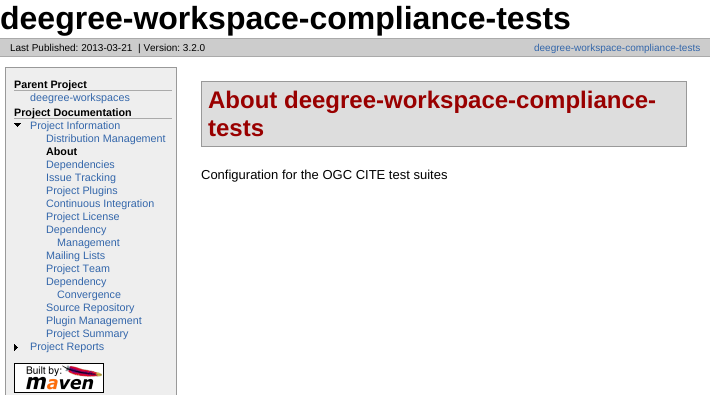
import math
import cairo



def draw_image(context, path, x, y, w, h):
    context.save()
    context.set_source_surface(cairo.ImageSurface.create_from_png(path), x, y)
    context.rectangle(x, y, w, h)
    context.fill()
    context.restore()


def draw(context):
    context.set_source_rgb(1, 1, 1)
    context.paint()
    context.set_source_rgb(204 / 255, 204 / 255, 204 / 255)
    context.rectangle(0, 39, 710, 17)
    context.fill()
    context.set_source_rgb(170 / 255, 170 / 255, 170 / 255)
    context.rectangle(0, 38, 710, 1)
    context.fill()
    context.rectangle(0, 56, 710, 1)
    context.fill()
    context.set_source_rgb(238 / 255, 238 / 255, 238 / 255)
    context.rectangle(5.5, 67.5, 171, 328)
    context.fill_preserve()
    context.set_source_rgb(153 / 255, 153 / 255, 153 / 255)
    context.set_line_width(1)
    context.stroke()
    context.set_source_rgb(170 / 255, 170 / 255, 170 / 255)
    context.rectangle(14, 90, 158, 1)
    context.fill()
    context.rectangle(14, 118, 158, 1)
    context.fill()
    draw_image(context, "images/1.png", 14, 123, 7, 4)
    draw_image(context, "images/2.png", 14, 344, 4, 7)
    draw_image(context, "images/3.png", 14, 363, 90, 30)
    context.set_source_rgb(221 / 255, 221 / 255, 221 / 255)
    context.rectangle(201.5, 81.5, 485, 65)
    context.fill_preserve()
    context.set_source_rgb(153 / 255, 153 / 255, 153 / 255)
    context.stroke()
    context.select_font_face("Liberation Sans", cairo.FontSlant.NORMAL, cairo.FontWeight.BOLD)
    context.set_font_size(32)
    context.set_source_rgb(0, 0, 0)
    context.move_to(0, 29)
    context.show_text("deegree-workspace-compliance-tests")
    context.select_font_face("Liberation Sans")
    context.set_font_size(10)
    context.move_to(10, 51)
    context.show_text("Last Published: 2013-03-21")
    context.move_to(138, 51)
    context.show_text("| Version: 3.2.0")
    context.set_source_rgb(51 / 255, 102 / 255, 170 / 255)
    context.move_to(534, 51)
    context.show_text("deegree-workspace-compliance-tests")
    context.select_font_face("Liberation Sans", cairo.FontSlant.NORMAL, cairo.FontWeight.BOLD)
    context.set_font_size(10.75)
    context.set_source_rgb(0, 0, 0)
    context.move_to(14, 88)
    context.show_text("Parent Project")
    context.select_font_face("Liberation Sans")
    context.set_source_rgb(51 / 255, 102 / 255, 170 / 255)
    context.move_to(30, 101)
    context.show_text("deegree-workspaces")
    context.select_font_face("Liberation Sans", cairo.FontSlant.NORMAL, cairo.FontWeight.BOLD)
    context.set_source_rgb(0, 0, 0)
    context.move_to(14, 116)
    context.show_text("Project Documentation")
    context.select_font_face("Liberation Sans")
    context.set_source_rgb(51 / 255, 102 / 255, 170 / 255)
    context.move_to(30, 129)
    context.show_text("Project Information")
    context.move_to(46, 142)
    context.show_text("Distribution Management")
    context.select_font_face("Liberation Sans", cairo.FontSlant.NORMAL, cairo.FontWeight.BOLD)
    context.set_source_rgb(0, 0, 0)
    context.move_to(46, 155)
    context.show_text("About")
    context.select_font_face("Liberation Sans")
    context.set_source_rgb(51 / 255, 102 / 255, 170 / 255)
    context.move_to(46, 168)
    context.show_text("Dependencies")
    context.move_to(46, 181)
    context.show_text("Issue Tracking")
    context.move_to(46, 194)
    context.show_text("Project Plugins")
    context.move_to(46, 207)
    context.show_text("Continuous Integration")
    context.move_to(46, 220)
    context.show_text("Project License")
    context.move_to(46, 233)
    context.show_text("Dependency")
    context.move_to(57, 246)
    context.show_text("Management")
    context.move_to(46, 259)
    context.show_text("Mailing Lists")
    context.move_to(46, 272)
    context.show_text("Project Team")
    context.move_to(46, 285)
    context.show_text("Dependency")
    context.move_to(57, 298)
    context.show_text("Convergence")
    context.move_to(46, 311)
    context.show_text("Source Repository")
    context.move_to(46, 324)
    context.show_text("Plugin Management")
    context.move_to(46, 337)
    context.show_text("Project Summary")
    context.move_to(30, 350)
    context.show_text("Project Reports")
    context.select_font_face("Liberation Sans", cairo.FontSlant.NORMAL, cairo.FontWeight.BOLD)
    context.set_font_size(24)
    context.set_source_rgb(153 / 255, 0, 0)
    context.move_to(208, 108)
    context.show_text("About deegree-workspace-compliance-")
    context.move_to(208, 136)
    context.show_text("tests")
    context.select_font_face("Liberation Sans")
    context.set_font_size(13)
    context.set_source_rgb(0, 0, 0)
    context.move_to(201, 179)
    context.show_text("Configuration for the OGC CITE test suites")


surface = cairo.ImageSurface(cairo.Format.RGB24, 710, 395)
context = cairo.Context(surface)
options = cairo.FontOptions()
options.set_hint_metrics(cairo.HintMetrics.OFF)
options.set_hint_style(cairo.HintStyle.NONE)
context.set_font_options(options)
context.set_miter_limit(4)
draw(context)
surface.write_to_png("out.png")
